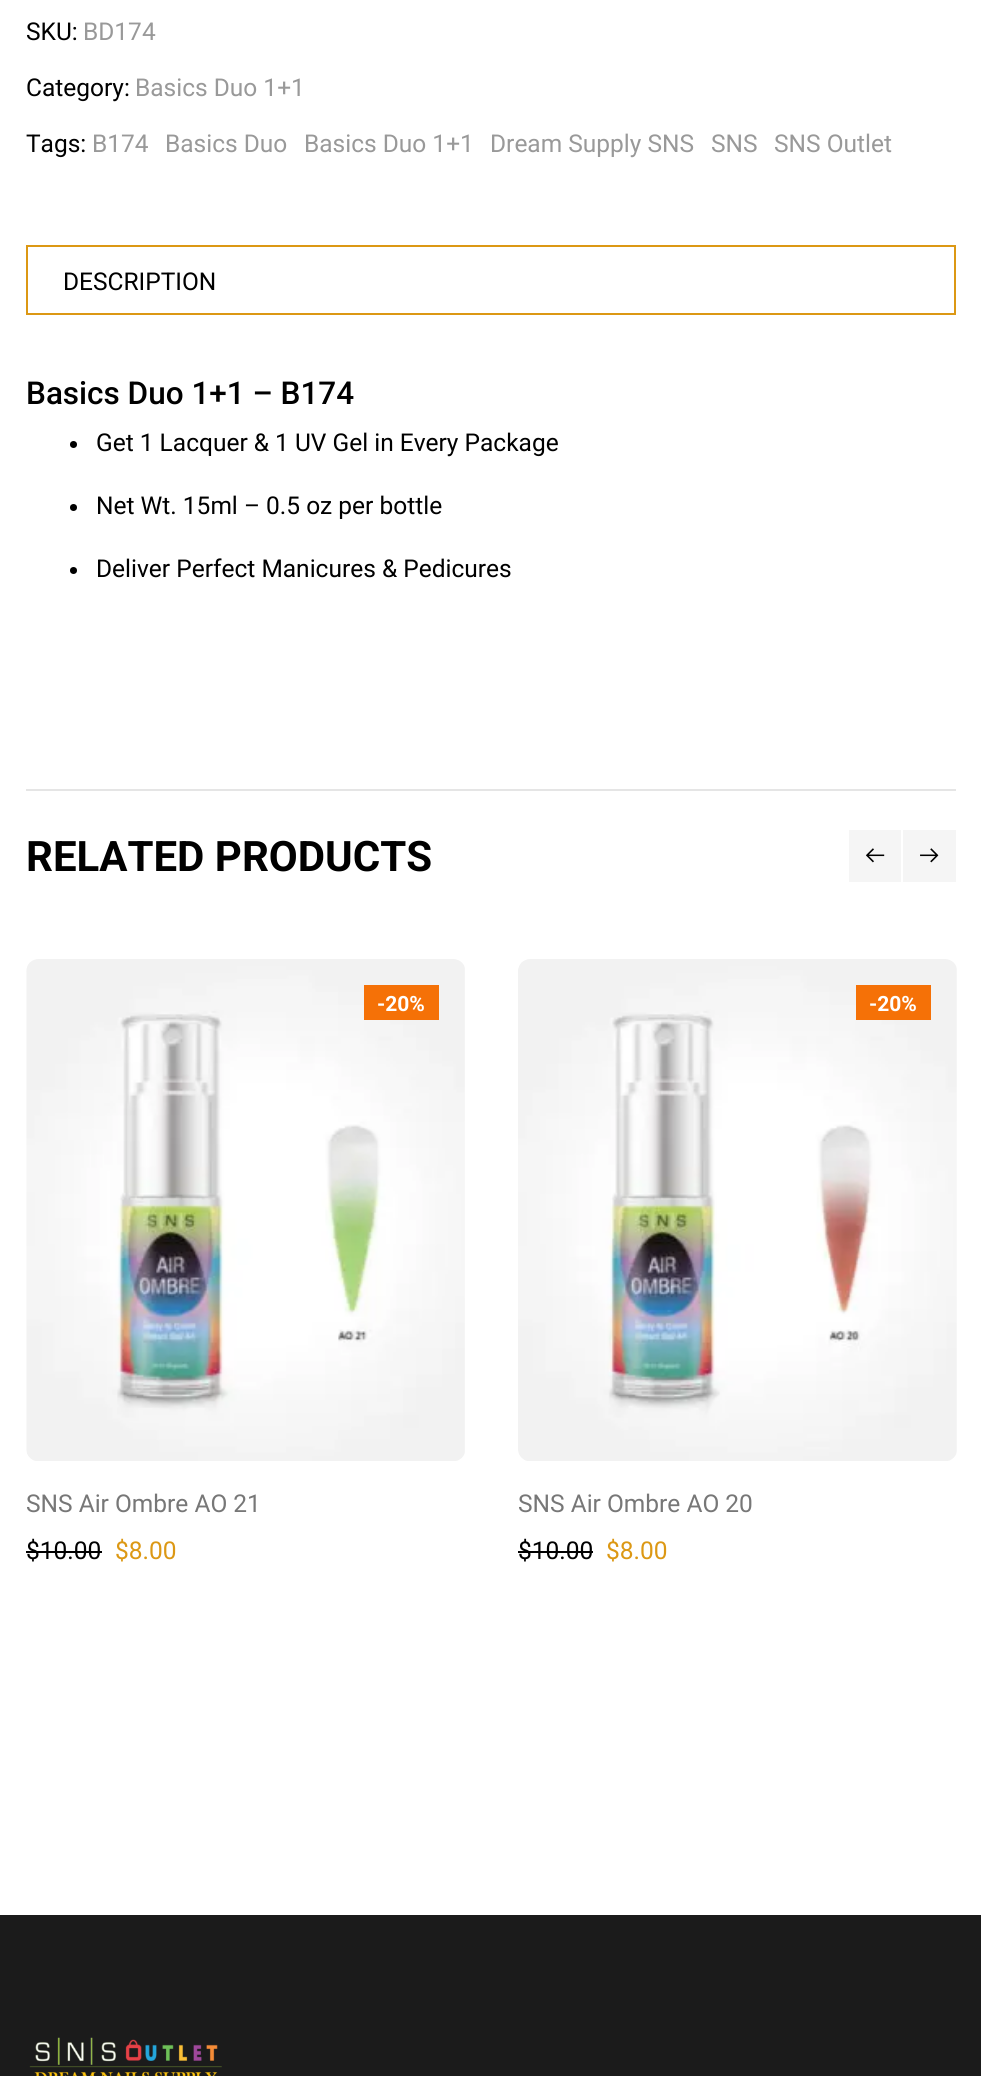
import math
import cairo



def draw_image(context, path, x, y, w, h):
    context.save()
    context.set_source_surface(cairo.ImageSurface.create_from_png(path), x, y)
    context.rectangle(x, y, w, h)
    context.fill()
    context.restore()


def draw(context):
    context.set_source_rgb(1, 1, 1)
    context.paint()
    context.rectangle(27, 246, 928, 68)
    context.set_source_rgb(220 / 255, 152 / 255, 20 / 255)
    context.stroke()
    context.set_source_rgb(229 / 255, 229 / 255, 229 / 255)
    context.rectangle(26, 789, 930, 2)
    context.fill()
    context.set_source_rgb(0, 0, 0)
    context.arc(73.5, 444.5, 3.5, 0, 2 * math.pi)
    context.fill()
    context.arc(73.5, 507.5, 3.5, 0, 2 * math.pi)
    context.fill()
    context.arc(73.5, 570.5, 3.5, 0, 2 * math.pi)
    context.fill()
    context.set_source_rgb(245 / 255, 245 / 255, 245 / 255)
    context.rectangle(849, 830, 52, 52)
    context.fill()
    draw_image(context, "images/1.png", 866, 848, 19, 15)
    context.rectangle(903, 830, 53, 52)
    context.fill()
    draw_image(context, "images/2.png", 920, 848, 19, 15)
    draw_image(context, "images/3.png", 26, 959, 439, 502)
    context.set_source_rgb(245 / 255, 113 / 255, 7 / 255)
    context.rectangle(364, 985, 75, 35)
    context.fill()
    context.set_source_rgb(0, 0, 0)
    context.rectangle(26, 1551, 76, 2)
    context.fill()
    draw_image(context, "images/4.png", 518, 959, 439, 502)
    context.set_source_rgb(245 / 255, 113 / 255, 7 / 255)
    context.rectangle(856, 985, 75, 35)
    context.fill()
    context.set_source_rgb(0, 0, 0)
    context.rectangle(518, 1551, 75, 2)
    context.fill()
    context.set_source_rgb(27 / 255, 27 / 255, 27 / 255)
    context.rectangle(0, 1915, 981, 161)
    context.fill()
    draw_image(context, "images/5.png", 29, 2037, 193, 39)
    context.select_font_face("Roboto")
    context.set_font_size(24.5)
    context.set_source_rgb(0, 0, 0)
    context.move_to(26, 40)
    context.show_text("SKU:")
    context.set_source_rgb(153 / 255, 153 / 255, 153 / 255)
    context.move_to(83, 40)
    context.show_text("BD174")
    context.set_source_rgb(0, 0, 0)
    context.move_to(26, 96)
    context.show_text("Category:")
    context.set_source_rgb(153 / 255, 153 / 255, 153 / 255)
    context.move_to(135, 96)
    context.show_text("Basics Duo 1+1")
    context.set_source_rgb(0, 0, 0)
    context.move_to(26, 152)
    context.show_text("Tags:")
    context.set_source_rgb(153 / 255, 153 / 255, 153 / 255)
    context.move_to(92, 152)
    context.show_text("B174")
    context.move_to(165, 152)
    context.show_text("Basics Duo")
    context.move_to(304, 152)
    context.show_text("Basics Duo 1+1")
    context.move_to(490, 152)
    context.show_text("Dream Supply SNS")
    context.move_to(711, 152)
    context.show_text("SNS")
    context.move_to(774, 152)
    context.show_text("SNS Outlet")
    context.set_source_rgb(0, 0, 0)
    context.move_to(63, 290)
    context.show_text("DESCRIPTION")
    context.select_font_face("Roboto Medium")
    context.set_font_size(31.5)
    context.move_to(26, 404)
    context.show_text("Basics Duo 1+1 – B174")
    context.select_font_face("Roboto")
    context.set_font_size(24.5)
    context.move_to(96, 451)
    context.show_text("Get 1 Lacquer & 1 UV Gel in Every Package")
    context.move_to(96, 514)
    context.show_text("Net Wt. 15ml – 0.5 oz per bottle")
    context.move_to(96, 577)
    context.show_text("Deliver Perfect Manicures & Pedicures")
    context.select_font_face("Roboto", cairo.FontSlant.NORMAL, cairo.FontWeight.BOLD)
    context.set_font_size(42)
    context.move_to(26, 871)
    context.show_text("RELATED PRODUCTS")
    context.set_font_size(21)
    context.set_source_rgb(1, 1, 1)
    context.move_to(377, 1011)
    context.show_text("-20%")
    context.select_font_face("Roboto")
    context.set_font_size(24.5)
    context.set_source_rgb(119 / 255, 119 / 255, 119 / 255)
    context.move_to(26, 1512)
    context.show_text("SNS Air Ombre AO 21")
    context.set_source_rgb(0, 0, 0)
    context.move_to(26, 1559)
    context.show_text("$10.00")
    context.set_source_rgb(220 / 255, 152 / 255, 20 / 255)
    context.move_to(115, 1559)
    context.show_text("$8.00")
    context.select_font_face("Roboto", cairo.FontSlant.NORMAL, cairo.FontWeight.BOLD)
    context.set_font_size(21)
    context.set_source_rgb(1, 1, 1)
    context.move_to(869, 1011)
    context.show_text("-20%")
    context.select_font_face("Roboto")
    context.set_font_size(24.5)
    context.set_source_rgb(119 / 255, 119 / 255, 119 / 255)
    context.move_to(518, 1512)
    context.show_text("SNS Air Ombre AO 20")
    context.set_source_rgb(0, 0, 0)
    context.move_to(518, 1559)
    context.show_text("$10.00")
    context.set_source_rgb(220 / 255, 152 / 255, 20 / 255)
    context.move_to(606, 1559)
    context.show_text("$8.00")


surface = cairo.ImageSurface(cairo.Format.RGB24, 981, 2076)
context = cairo.Context(surface)
options = cairo.FontOptions()
options.set_hint_metrics(cairo.HintMetrics.OFF)
options.set_hint_style(cairo.HintStyle.NONE)
context.set_font_options(options)
context.set_miter_limit(4)
draw(context)
surface.write_to_png("out.png")
